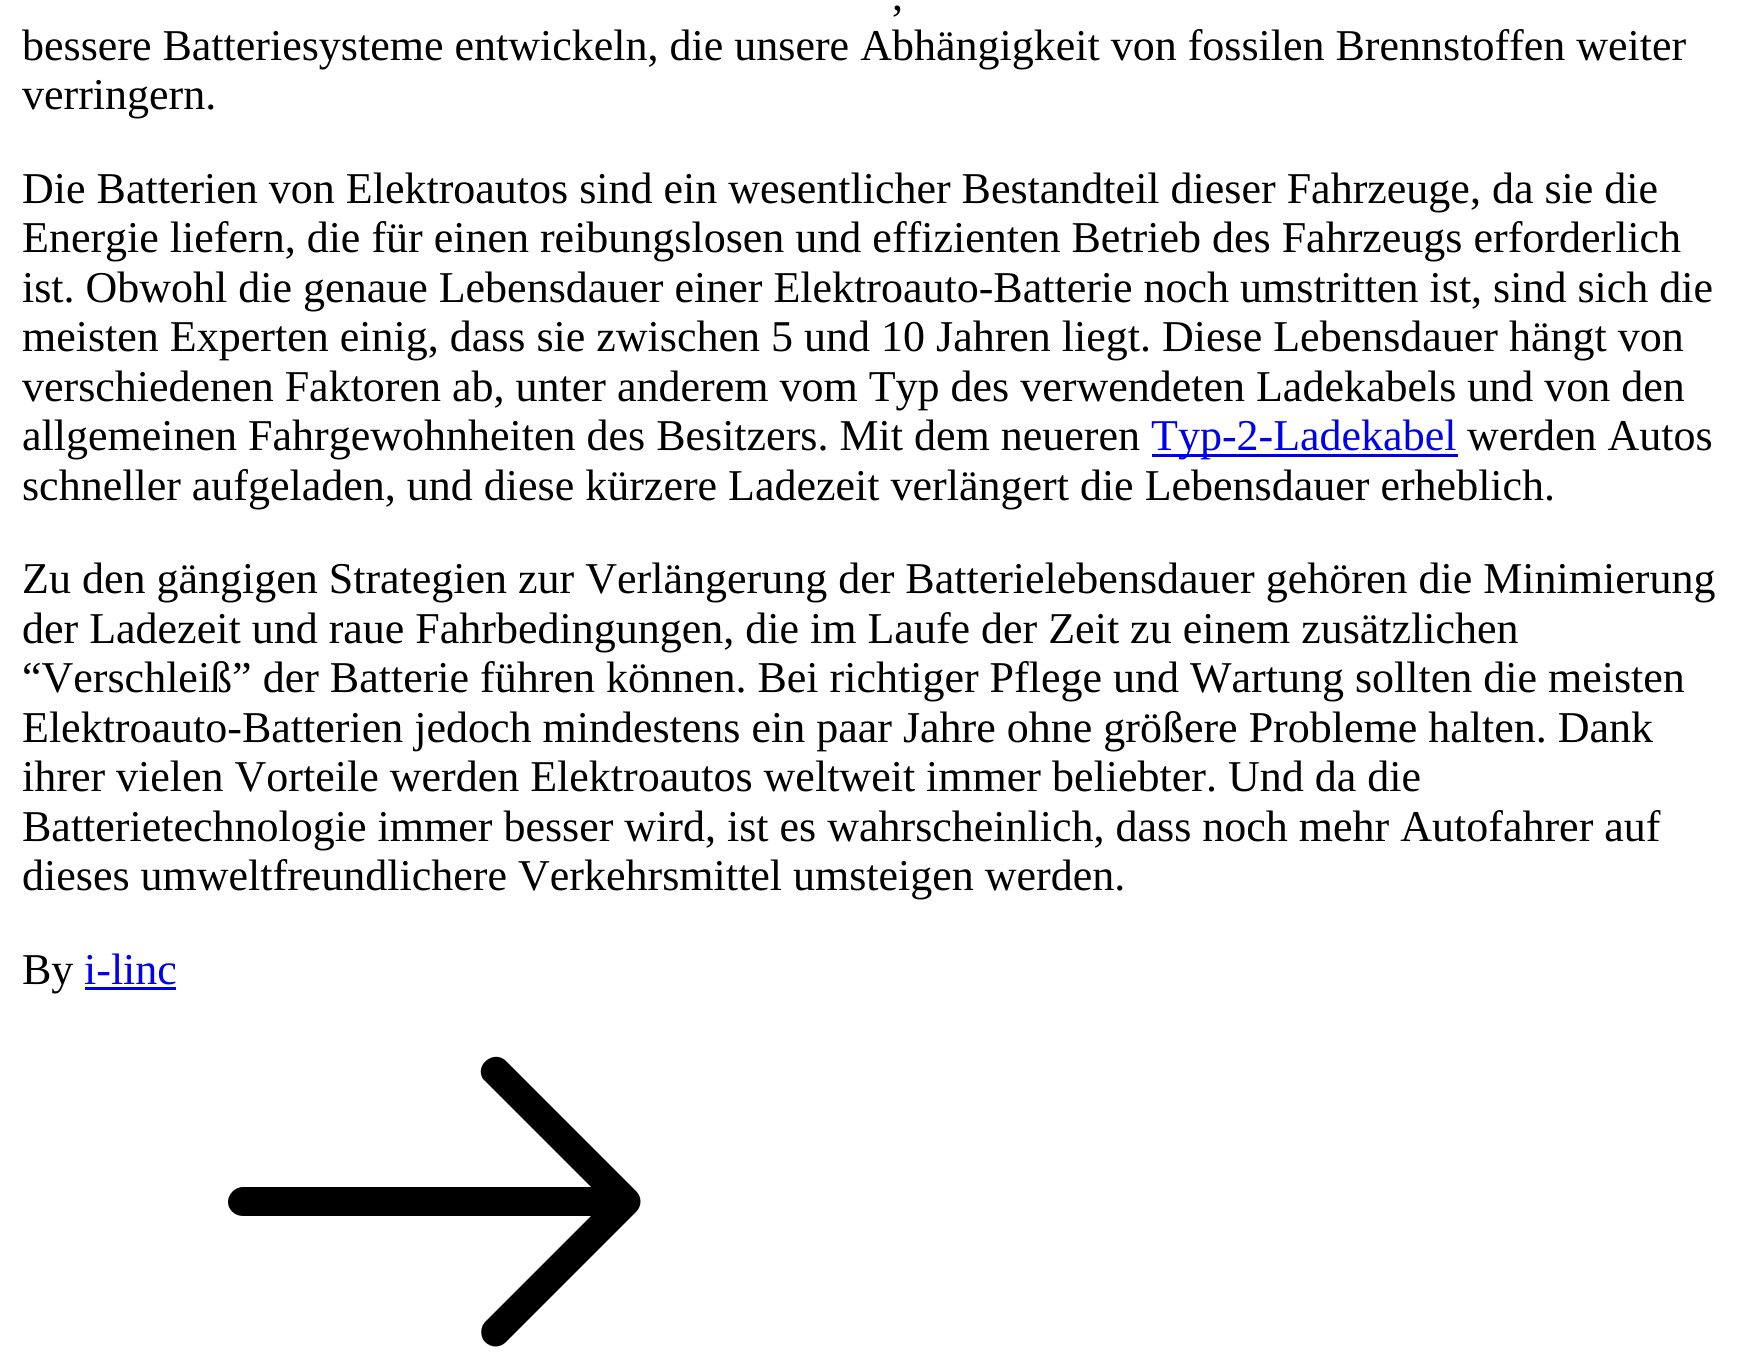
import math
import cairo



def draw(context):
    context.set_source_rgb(1, 1, 1)
    context.paint()
    context.set_source_rgb(0, 0, 238 / 255)
    context.rectangle(1152, 454, 306, 3)
    context.fill()
    context.rectangle(85, 987, 91, 3)
    context.fill()
    context.set_source_rgb(0, 0, 0)
    context.new_path()
    context.move_to(506, 1061)
    context.curve_to(494, 1049, 474, 1065, 483, 1079)
    context.line_to(591, 1187)
    context.line_to(243, 1187)
    context.curve_to(235, 1187, 228, 1194, 228, 1202)
    context.curve_to(228, 1210, 235, 1216, 243, 1216)
    context.line_to(591, 1216)
    context.line_to(485, 1322)
    context.curve_to(480, 1327, 480, 1337, 485, 1342)
    context.curve_to(491, 1348, 500, 1348, 506, 1342)
    context.line_to(636, 1212)
    context.curve_to(642, 1206, 642, 1197, 636, 1191)
    context.close_path()
    context.fill()
    context.select_font_face("Liberation Serif")
    context.set_font_size(44)
    context.move_to(892, 10)
    context.show_text(",")
    context.move_to(22, 60)
    context.show_text("bessere Batteriesysteme entwickeln, die unsere Abhängigkeit von fossilen Brennstoffen weiter")
    context.move_to(22, 109)
    context.show_text("verringern.")
    context.move_to(22, 203)
    context.show_text("Die Batterien von Elektroautos sind ein wesentlicher Bestandteil dieser Fahrzeuge, da sie die")
    context.move_to(22, 252)
    context.show_text("Energie liefern, die für einen reibungslosen und effizienten Betrieb des Fahrzeugs erforderlich")
    context.move_to(22, 302)
    context.show_text("ist. Obwohl die genaue Lebensdauer einer Elektroauto-Batterie noch umstritten ist, sind sich die")
    context.move_to(22, 351)
    context.show_text("meisten Experten einig, dass sie zwischen 5 und 10 Jahren liegt. Diese Lebensdauer hängt von")
    context.move_to(22, 401)
    context.show_text("verschiedenen Faktoren ab, unter anderem vom Typ des verwendeten Ladekabels und von den")
    context.move_to(22, 450)
    context.show_text("allgemeinen Fahrgewohnheiten des Besitzers. Mit dem neueren")
    context.set_source_rgb(0, 0, 238 / 255)
    context.move_to(1151, 450)
    context.show_text("Typ-2-Ladekabel")
    context.set_source_rgb(0, 0, 0)
    context.move_to(1467, 450)
    context.show_text("werden Autos")
    context.move_to(22, 500)
    context.show_text("schneller aufgeladen, und diese kürzere Ladezeit verlängert die Lebensdauer erheblich.")
    context.move_to(22, 593)
    context.show_text("Zu den gängigen Strategien zur Verlängerung der Batterielebensdauer gehören die Minimierung")
    context.move_to(22, 643)
    context.show_text("der Ladezeit und raue Fahrbedingungen, die im Laufe der Zeit zu einem zusätzlichen")
    context.move_to(22, 692)
    context.show_text("“Verschleiß” der Batterie führen können. Bei richtiger Pflege und Wartung sollten die meisten")
    context.move_to(22, 742)
    context.show_text("Elektroauto-Batterien jedoch mindestens ein paar Jahre ohne größere Probleme halten. Dank")
    context.move_to(22, 791)
    context.show_text("ihrer vielen Vorteile werden Elektroautos weltweit immer beliebter. Und da die")
    context.move_to(22, 841)
    context.show_text("Batterietechnologie immer besser wird, ist es wahrscheinlich, dass noch mehr Autofahrer auf")
    context.move_to(22, 890)
    context.show_text("dieses umweltfreundlichere Verkehrsmittel umsteigen werden.")
    context.move_to(22, 984)
    context.show_text("By")
    context.set_source_rgb(0, 0, 238 / 255)
    context.move_to(84, 984)
    context.show_text("i-linc")


surface = cairo.ImageSurface(cairo.Format.RGB24, 1758, 1360)
context = cairo.Context(surface)
options = cairo.FontOptions()
options.set_hint_metrics(cairo.HintMetrics.OFF)
options.set_hint_style(cairo.HintStyle.NONE)
context.set_font_options(options)
context.set_miter_limit(4)
draw(context)
surface.write_to_png("out.png")
